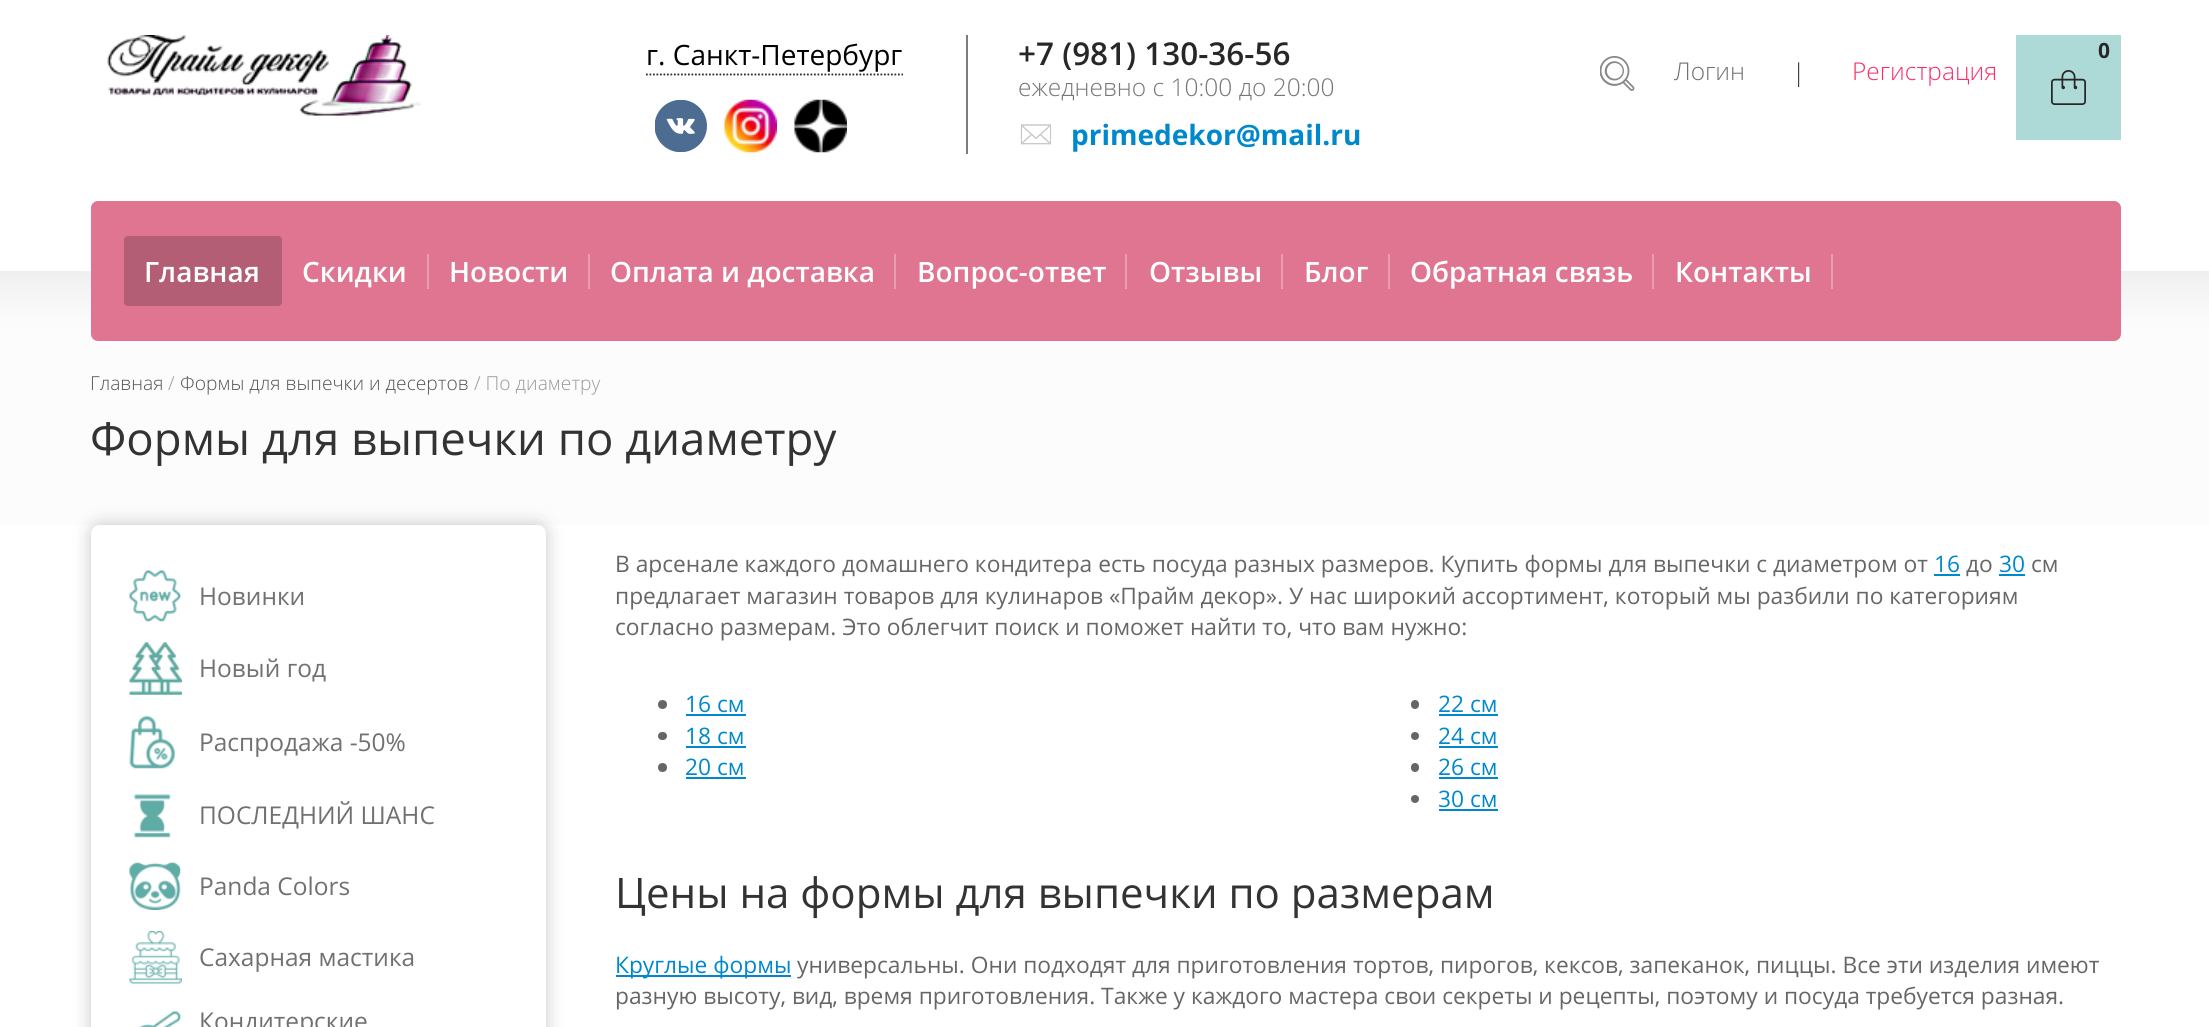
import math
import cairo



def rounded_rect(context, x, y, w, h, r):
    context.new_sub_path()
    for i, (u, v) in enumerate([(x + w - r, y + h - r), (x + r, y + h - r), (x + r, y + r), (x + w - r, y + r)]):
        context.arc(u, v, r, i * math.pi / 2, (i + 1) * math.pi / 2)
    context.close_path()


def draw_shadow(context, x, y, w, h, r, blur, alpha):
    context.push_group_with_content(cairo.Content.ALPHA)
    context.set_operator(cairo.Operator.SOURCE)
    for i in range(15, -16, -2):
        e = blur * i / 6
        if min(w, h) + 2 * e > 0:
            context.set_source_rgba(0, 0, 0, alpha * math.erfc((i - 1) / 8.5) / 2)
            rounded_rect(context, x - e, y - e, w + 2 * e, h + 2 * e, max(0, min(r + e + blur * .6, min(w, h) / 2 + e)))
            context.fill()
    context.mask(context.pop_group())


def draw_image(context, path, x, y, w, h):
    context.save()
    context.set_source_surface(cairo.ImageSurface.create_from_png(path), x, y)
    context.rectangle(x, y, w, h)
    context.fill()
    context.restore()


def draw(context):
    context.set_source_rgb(1, 1, 1)
    context.paint()
    draw_image(context, "images/1.png", 107, 35, 314, 81)
    context.new_path()
    context.move_to(646, 74.5)
    context.line_to(903, 74.5)
    context.set_source_rgb(39 / 255, 39 / 255, 39 / 255)
    context.set_line_width(1.8)
    context.set_dash([1.75, 1.75])
    context.stroke()
    draw_image(context, "images/2.png", 655, 100, 52, 52)
    draw_image(context, "images/3.png", 724, 99, 53, 54)
    draw_image(context, "images/4.png", 794, 99, 53, 54)
    context.set_source_rgb(125 / 255, 125 / 255, 125 / 255)
    context.rectangle(966, 35, 2, 119)
    context.fill()
    draw_image(context, "images/5.png", 1020, 124, 32, 21)
    context.set_source_rgb(173 / 255, 218 / 255, 215 / 255)
    context.rectangle(2016, 35, 105, 105)
    context.fill()
    draw_image(context, "images/6.png", 2051, 70, 35, 35)
    draw_image(context, "images/7.png", 1600, 56, 35, 35)
    gradient = cairo.LinearGradient(1105, 271, 1105, 324)
    gradient.add_color_stop_rgba(0, 239 / 255, 239 / 255, 239 / 255, 1)
    gradient.add_color_stop_rgba(1, 252 / 255, 252 / 255, 252 / 255, 1)
    context.set_source(gradient)
    context.rectangle(0, 271, 2209, 53)
    context.fill()
    context.set_source_rgb(252 / 255, 252 / 255, 252 / 255)
    context.rectangle(0, 324, 2209, 201)
    context.fill()
    context.set_source_rgb(224 / 255, 117 / 255, 145 / 255)
    rounded_rect(context, 91, 201, 2030, 140, 7)
    context.fill()
    context.set_source_rgb(179 / 255, 94 / 255, 116 / 255)
    rounded_rect(context, 124, 236, 158, 70, 4)
    context.fill()
    context.set_source_rgb(232 / 255, 157 / 255, 177 / 255)
    context.rectangle(427, 254, 2, 35)
    context.fill()
    context.rectangle(588, 254, 2, 35)
    context.fill()
    context.rectangle(894, 254, 2, 35)
    context.fill()
    context.rectangle(1125, 254, 2, 35)
    context.fill()
    context.rectangle(1281, 254, 2, 35)
    context.fill()
    context.rectangle(1388, 254, 2, 35)
    context.fill()
    context.rectangle(1652, 254, 2, 35)
    context.fill()
    context.rectangle(1831, 254, 2, 35)
    context.fill()
    context.set_source_rgb(0, 0, 0)
    draw_shadow(context, 91, 525, 455, 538, 9, 9, 0.22)
    context.set_source_rgb(1, 1, 1)
    rounded_rect(context, 91, 525, 455, 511, 9)
    context.fill()
    draw_image(context, "images/8.png", 129, 570, 52, 52)
    draw_image(context, "images/9.png", 129, 642, 53, 53)
    draw_image(context, "images/10.png", 129, 715, 46, 54)
    draw_image(context, "images/11.png", 134, 794, 37, 44)
    draw_image(context, "images/12.png", 129, 862, 52, 48)
    draw_image(context, "images/13.png", 129, 931, 53, 53)
    draw_image(context, "images/14.png", 139, 1011, 42, 16)
    context.set_source_rgb(0, 136 / 255, 204 / 255)
    context.rectangle(1934, 574, 26, 2)
    context.fill()
    context.rectangle(1999, 574, 26, 2)
    context.fill()
    context.set_source_rgb(102 / 255, 102 / 255, 102 / 255)
    context.arc(662.5, 704.5, 4.5, 0, 2 * math.pi)
    context.fill()
    context.set_source_rgb(0, 136 / 255, 204 / 255)
    context.rectangle(686, 714, 60, 2)
    context.fill()
    context.set_source_rgb(102 / 255, 102 / 255, 102 / 255)
    rounded_rect(context, 658, 732, 9, 8, 4)
    context.fill()
    context.set_source_rgb(0, 136 / 255, 204 / 255)
    context.rectangle(686, 746, 60, 2)
    context.fill()
    context.set_source_rgb(102 / 255, 102 / 255, 102 / 255)
    context.arc(662.5, 767.5, 4.5, 0, 2 * math.pi)
    context.fill()
    context.set_source_rgb(0, 136 / 255, 204 / 255)
    context.rectangle(686, 777, 60, 2)
    context.fill()
    context.set_source_rgb(102 / 255, 102 / 255, 102 / 255)
    rounded_rect(context, 1411, 700, 8, 9, 4)
    context.fill()
    context.set_source_rgb(0, 136 / 255, 204 / 255)
    context.rectangle(1439, 714, 59, 2)
    context.fill()
    context.set_source_rgb(102 / 255, 102 / 255, 102 / 255)
    context.arc(1415, 736, 4, 0, 2 * math.pi)
    context.fill()
    context.set_source_rgb(0, 136 / 255, 204 / 255)
    context.rectangle(1439, 746, 59, 2)
    context.fill()
    context.set_source_rgb(102 / 255, 102 / 255, 102 / 255)
    rounded_rect(context, 1411, 763, 8, 9, 4)
    context.fill()
    context.set_source_rgb(0, 136 / 255, 204 / 255)
    context.rectangle(1439, 777, 59, 2)
    context.fill()
    context.set_source_rgb(102 / 255, 102 / 255, 102 / 255)
    context.arc(1415, 799, 4, 0, 2 * math.pi)
    context.fill()
    context.set_source_rgb(0, 136 / 255, 204 / 255)
    context.rectangle(1439, 809, 59, 2)
    context.fill()
    context.rectangle(616, 975, 175, 2)
    context.fill()
    context.select_font_face("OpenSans")
    context.set_font_size(28)
    context.set_source_rgb(0, 0, 0)
    context.move_to(646, 65)
    context.show_text("г. Санкт-Петербург")
    context.select_font_face("Open Sans SemiBold")
    context.set_font_size(31.5)
    context.set_source_rgb(39 / 255, 39 / 255, 39 / 255)
    context.move_to(1018, 65)
    context.show_text("+7 (981) 130-36-56")
    context.select_font_face("Open Sans Light")
    context.set_font_size(24.5)
    context.set_source_rgb(119 / 255, 119 / 255, 119 / 255)
    context.move_to(1018, 96)
    context.show_text("ежедневно с 10:00 до 20:00")
    context.select_font_face("OpenSans", cairo.FontSlant.NORMAL, cairo.FontWeight.BOLD)
    context.set_font_size(28)
    context.set_source_rgb(0, 136 / 255, 204 / 255)
    context.move_to(1071, 145)
    context.show_text("primedekor@mail.ru")
    context.set_font_size(21)
    context.set_source_rgb(39 / 255, 39 / 255, 39 / 255)
    context.move_to(2098, 58)
    context.show_text("0")
    context.select_font_face("Open Sans Light")
    context.set_font_size(24.5)
    context.set_source_rgb(113 / 255, 113 / 255, 113 / 255)
    context.move_to(1674, 80)
    context.show_text("Логин")
    context.set_source_rgb(51 / 255, 51 / 255, 51 / 255)
    context.move_to(1792, 81)
    context.show_text("|")
    context.set_source_rgb(253 / 255, 45 / 255, 100 / 255)
    context.move_to(1852, 80)
    context.show_text("Регистрация")
    context.select_font_face("Open Sans SemiBold")
    context.set_font_size(28)
    context.set_source_rgb(1, 1, 1)
    context.move_to(144, 282)
    context.show_text("Главная")
    context.move_to(302, 282)
    context.show_text("Скидки")
    context.move_to(449, 282)
    context.show_text("Новости")
    context.move_to(610, 282)
    context.show_text("Оплата и доставка")
    context.move_to(917, 282)
    context.show_text("Вопрос-ответ")
    context.move_to(1149, 282)
    context.show_text("Отзывы")
    context.move_to(1304, 282)
    context.show_text("Блог")
    context.move_to(1410, 282)
    context.show_text("Обратная связь")
    context.move_to(1675, 282)
    context.show_text("Контакты")
    context.select_font_face("Open Sans Light")
    context.set_font_size(19.25)
    context.set_source_rgb(85 / 255, 85 / 255, 85 / 255)
    context.move_to(90, 390)
    context.show_text("Главная")
    context.set_source_rgb(153 / 255, 153 / 255, 153 / 255)
    context.move_to(168, 390)
    context.show_text("/")
    context.set_source_rgb(85 / 255, 85 / 255, 85 / 255)
    context.move_to(180, 390)
    context.show_text("Формы для выпечки и десертов")
    context.set_source_rgb(153 / 255, 153 / 255, 153 / 255)
    context.move_to(474, 390)
    context.show_text("/ По диаметру")
    context.select_font_face("OpenSans")
    context.set_font_size(45.5)
    context.set_source_rgb(51 / 255, 51 / 255, 51 / 255)
    context.move_to(90, 455)
    context.show_text("Формы для выпечки по диаметру")
    context.select_font_face("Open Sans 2")
    context.set_font_size(24.5)
    context.set_source_rgb(113 / 255, 113 / 255, 113 / 255)
    context.move_to(199, 605)
    context.show_text("Новинки")
    context.move_to(199, 677)
    context.show_text("Новый год")
    context.move_to(199, 751)
    context.show_text("Распродажа -50%")
    context.move_to(199, 824)
    context.show_text("ПОСЛЕДНИЙ ШАНС")
    context.move_to(199, 895)
    context.show_text("Panda Colors")
    context.move_to(199, 966)
    context.show_text("Сахарная мастика")
    context.move_to(199, 1030)
    context.show_text("Кондитерские")
    context.select_font_face("OpenSans")
    context.set_font_size(22.75)
    context.set_source_rgb(102 / 255, 102 / 255, 102 / 255)
    context.move_to(615, 572)
    context.show_text("В арсенале каждого домашнего кондитера есть посуда разных размеров. Купить формы для выпечки с диаметром от")
    context.set_source_rgb(0, 136 / 255, 204 / 255)
    context.move_to(1934, 572)
    context.show_text("16")
    context.set_source_rgb(102 / 255, 102 / 255, 102 / 255)
    context.move_to(1966, 572)
    context.show_text("до")
    context.set_source_rgb(0, 136 / 255, 204 / 255)
    context.move_to(1999, 572)
    context.show_text("30")
    context.set_source_rgb(102 / 255, 102 / 255, 102 / 255)
    context.move_to(2031, 572)
    context.show_text("см")
    context.move_to(615, 604)
    context.show_text("предлагает магазин товаров для кулинаров «Прайм декор». У нас широкий ассортимент, который мы разбили по категориям")
    context.move_to(615, 635)
    context.show_text("согласно размерам. Это облегчит поиск и поможет найти то, что вам нужно:")
    context.set_source_rgb(0, 136 / 255, 204 / 255)
    context.move_to(685, 712)
    context.show_text("16 см")
    context.move_to(685, 744)
    context.show_text("18 см")
    context.move_to(685, 775)
    context.show_text("20 см")
    context.move_to(1438, 712)
    context.show_text("22 см")
    context.move_to(1438, 744)
    context.show_text("24 см")
    context.move_to(1438, 775)
    context.show_text("26 см")
    context.move_to(1438, 807)
    context.show_text("30 см")
    context.set_font_size(42)
    context.set_source_rgb(51 / 255, 51 / 255, 51 / 255)
    context.move_to(615, 908)
    context.show_text("Цены на формы для выпечки по размерам")
    context.set_font_size(22.75)
    context.set_source_rgb(0, 136 / 255, 204 / 255)
    context.move_to(615, 973)
    context.show_text("Круглые формы")
    context.set_source_rgb(102 / 255, 102 / 255, 102 / 255)
    context.move_to(797, 973)
    context.show_text("универсальны. Они подходят для приготовления тортов, пирогов, кексов, запеканок, пиццы. Все эти изделия имеют")
    context.move_to(615, 1004)
    context.show_text("разную высоту, вид, время приготовления. Также у каждого мастера свои секреты и рецепты, поэтому и посуда требуется разная.")


surface = cairo.ImageSurface(cairo.Format.RGB24, 2209, 1027)
context = cairo.Context(surface)
options = cairo.FontOptions()
options.set_hint_metrics(cairo.HintMetrics.OFF)
options.set_hint_style(cairo.HintStyle.NONE)
context.set_font_options(options)
context.set_miter_limit(4)
draw(context)
surface.write_to_png("out.png")
